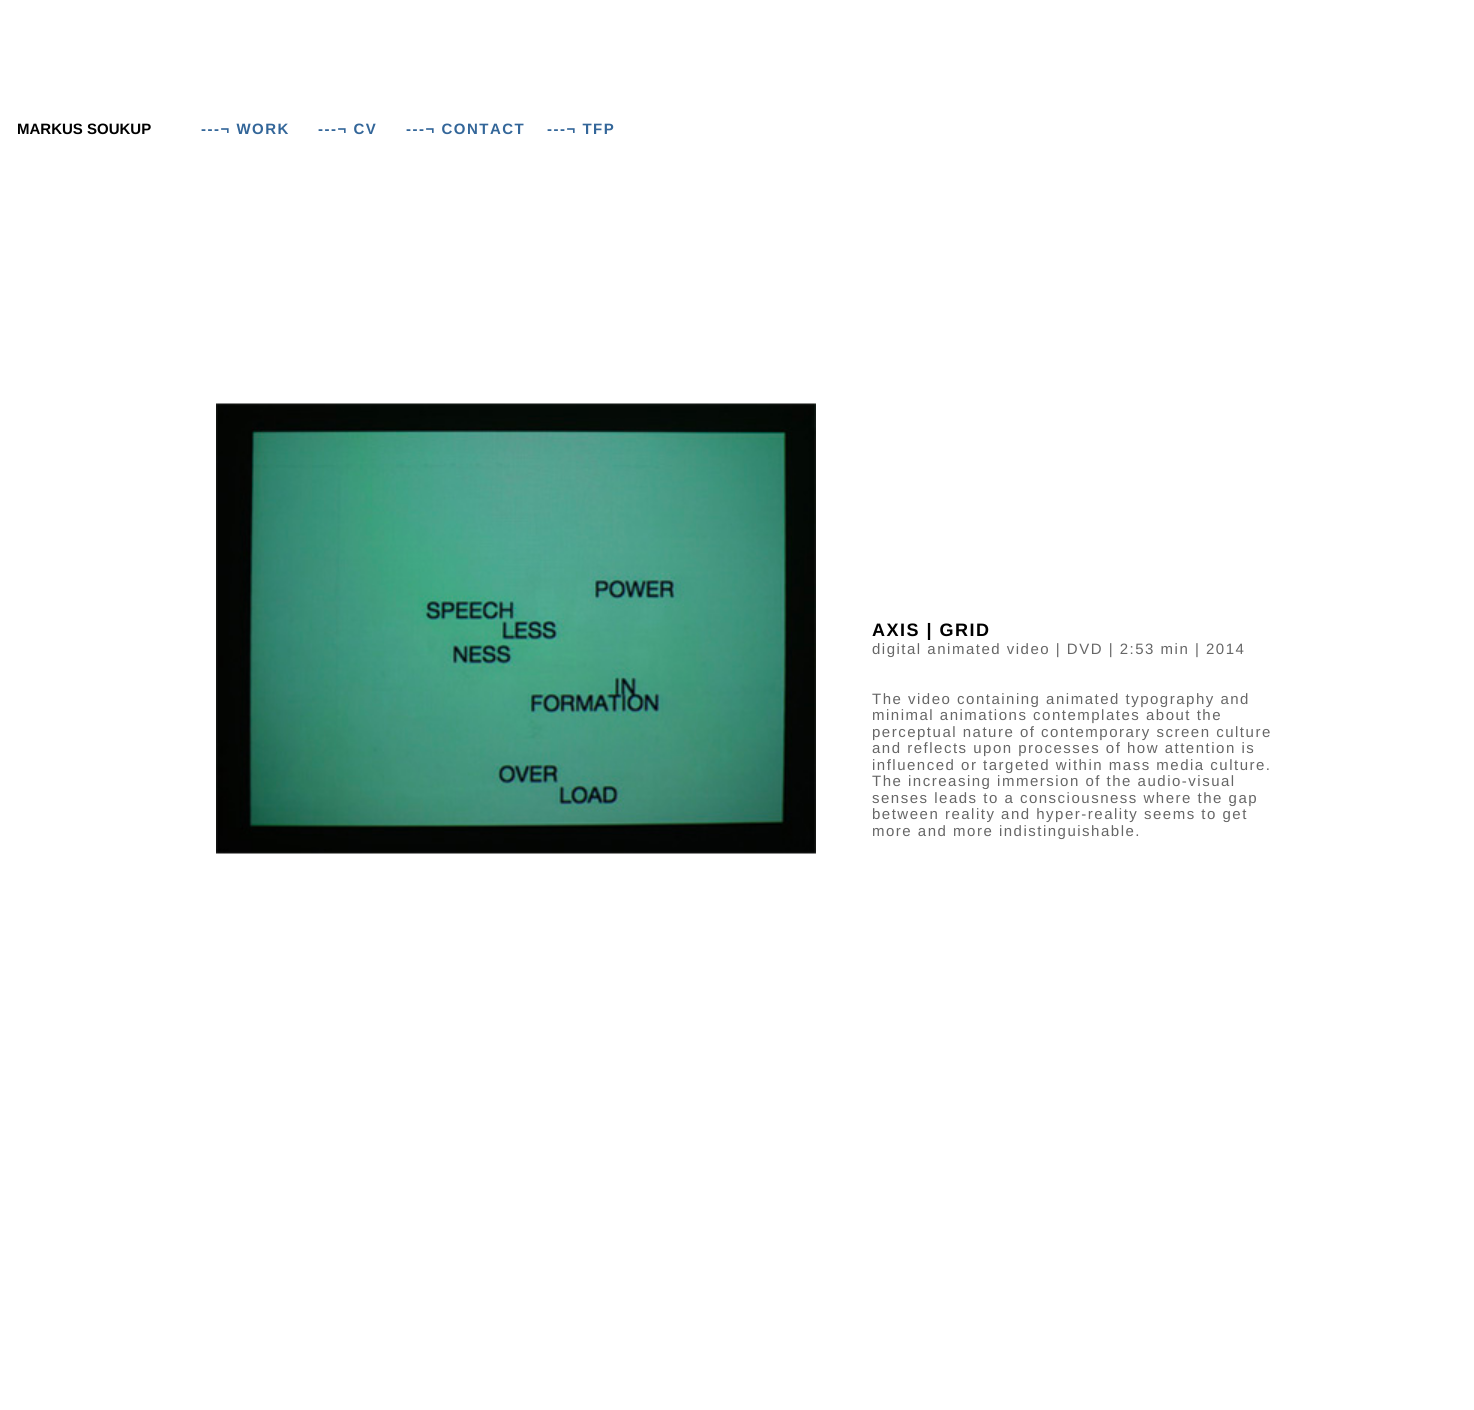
import math
import cairo



def draw_spaced(context, x, y, s, letter, word):
    context.move_to(x, y)
    for ch in s:
        context.show_text(ch)
        context.rel_move_to(letter + word * (ch == ' '), 0)


def draw_image(context, path, x, y, w, h):
    context.save()
    context.set_source_surface(cairo.ImageSurface.create_from_png(path), x, y)
    context.rectangle(x, y, w, h)
    context.fill()
    context.restore()


def draw(context):
    context.set_source_rgb(1, 1, 1)
    context.paint()
    draw_image(context, "images/1.png", 216, 403, 600, 451)
    context.select_font_face("Liberation Sans", cairo.FontSlant.NORMAL, cairo.FontWeight.BOLD)
    context.set_font_size(15)
    context.set_source_rgb(0, 0, 0)
    context.move_to(17, 134)
    context.show_text("MARKUS SOUKUP")
    context.set_source_rgb(51 / 255, 102 / 255, 153 / 255)
    draw_spaced(context, 201, 134, "---¬ WORK", 1.5, 0)
    draw_spaced(context, 318, 134, "---¬ CV", 1.5, 0)
    draw_spaced(context, 406, 134, "---¬ CONTACT", 1.5, 0)
    draw_spaced(context, 547, 134, "---¬ TFP", 1.5, 0)
    context.set_font_size(18)
    context.set_source_rgb(0, 0, 0)
    draw_spaced(context, 872, 636, "AXIS | GRID", 1.5, 0)
    context.select_font_face("Liberation Sans")
    context.set_font_size(15)
    context.set_source_rgb(102 / 255, 102 / 255, 102 / 255)
    draw_spaced(context, 872, 654, "digital animated video | DVD | 2:53 min | 2014", 1.5, 0)
    draw_spaced(context, 872, 704, "The video containing animated typography and", 1.5, 0)
    draw_spaced(context, 872, 720, "minimal animations contemplates about the", 1.5, 0)
    draw_spaced(context, 872, 737, "perceptual nature of contemporary screen culture", 1.5, 0)
    draw_spaced(context, 872, 753, "and reflects upon processes of how attention is", 1.5, 0)
    draw_spaced(context, 872, 770, "influenced or targeted within mass media culture.", 1.5, 0)
    draw_spaced(context, 872, 786, "The increasing immersion of the audio-visual", 1.5, 0)
    draw_spaced(context, 872, 803, "senses leads to a consciousness where the gap", 1.5, 0)
    draw_spaced(context, 872, 819, "between reality and hyper-reality seems to get", 1.5, 0)
    draw_spaced(context, 872, 836, "more and more indistinguishable.", 1.5, 0)


surface = cairo.ImageSurface(cairo.Format.RGB24, 1474, 1410)
context = cairo.Context(surface)
options = cairo.FontOptions()
options.set_hint_metrics(cairo.HintMetrics.OFF)
options.set_hint_style(cairo.HintStyle.NONE)
context.set_font_options(options)
context.set_miter_limit(4)
draw(context)
surface.write_to_png("out.png")
